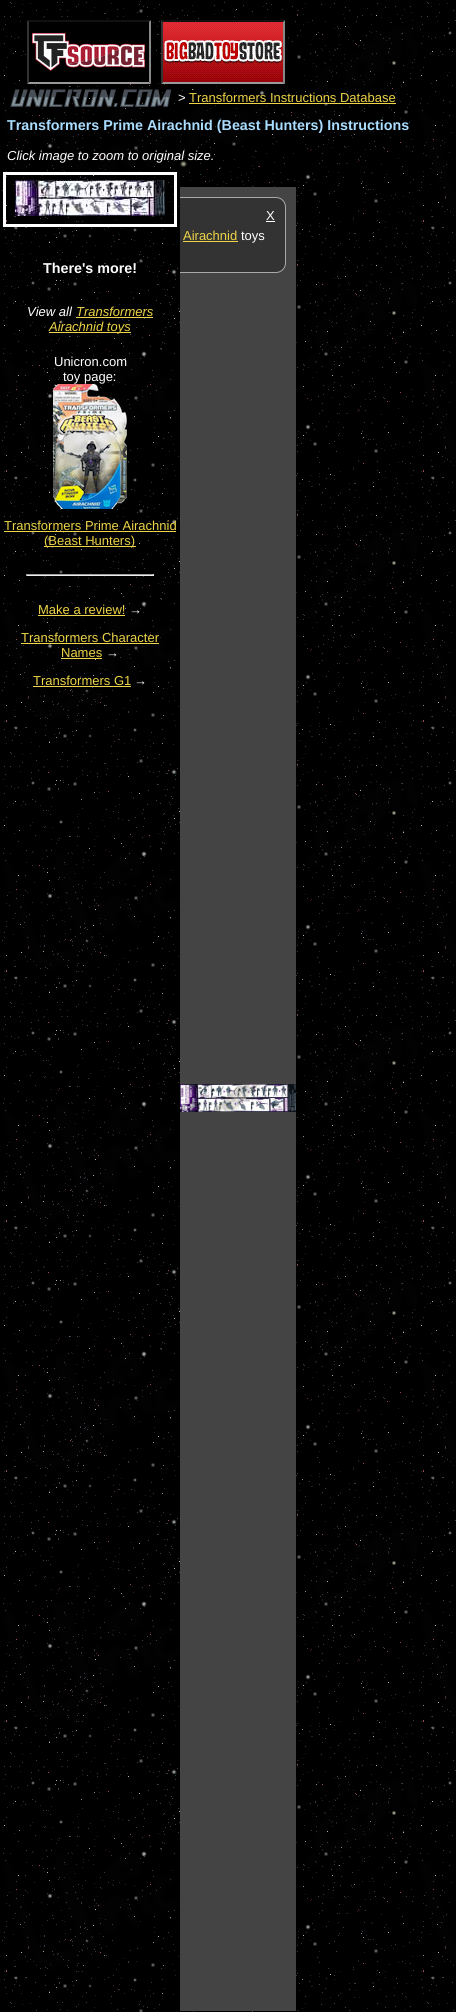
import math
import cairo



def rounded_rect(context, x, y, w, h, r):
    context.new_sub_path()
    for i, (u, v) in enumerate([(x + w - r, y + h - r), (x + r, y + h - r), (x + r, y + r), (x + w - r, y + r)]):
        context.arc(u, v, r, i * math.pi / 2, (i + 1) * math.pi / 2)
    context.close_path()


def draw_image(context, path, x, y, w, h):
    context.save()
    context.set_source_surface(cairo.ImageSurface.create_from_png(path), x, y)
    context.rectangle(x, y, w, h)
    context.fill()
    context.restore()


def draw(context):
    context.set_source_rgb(0, 0, 0)
    context.paint()
    draw_image(context, "images/1.png", 2, 1, 454, 2011)
    context.set_source_rgb(17 / 255, 17 / 255, 17 / 255)
    context.new_path()
    context.move_to(27, 20)
    context.line_to(151, 20)
    context.line_to(149, 22)
    context.line_to(29, 22)
    context.close_path()
    context.fill()
    context.set_source_rgb(136 / 255, 136 / 255, 136 / 255)
    context.new_path()
    context.move_to(151, 20)
    context.line_to(151, 84)
    context.line_to(149, 82)
    context.line_to(149, 22)
    context.close_path()
    context.fill()
    context.set_source_rgb(153 / 255, 153 / 255, 153 / 255)
    context.new_path()
    context.move_to(151, 84)
    context.line_to(27, 84)
    context.line_to(29, 82)
    context.line_to(149, 82)
    context.close_path()
    context.fill()
    context.set_source_rgb(51 / 255, 51 / 255, 51 / 255)
    context.new_path()
    context.move_to(27, 84)
    context.line_to(27, 20)
    context.line_to(29, 22)
    context.line_to(29, 82)
    context.close_path()
    context.fill()
    context.set_source_rgb(17 / 255, 17 / 255, 17 / 255)
    context.new_path()
    context.move_to(161, 20)
    context.line_to(285, 20)
    context.line_to(283, 22)
    context.line_to(163, 22)
    context.close_path()
    context.fill()
    draw_image(context, "images/2.png", 30, 22, 119, 57)
    context.set_source_rgb(136 / 255, 136 / 255, 136 / 255)
    context.new_path()
    context.move_to(285, 20)
    context.line_to(285, 84)
    context.line_to(283, 82)
    context.line_to(283, 22)
    context.close_path()
    context.fill()
    context.set_source_rgb(153 / 255, 153 / 255, 153 / 255)
    context.new_path()
    context.move_to(285, 84)
    context.line_to(161, 84)
    context.line_to(163, 82)
    context.line_to(283, 82)
    context.close_path()
    context.fill()
    context.set_source_rgb(51 / 255, 51 / 255, 51 / 255)
    context.new_path()
    context.move_to(161, 84)
    context.line_to(161, 20)
    context.line_to(163, 22)
    context.line_to(163, 82)
    context.close_path()
    context.fill()
    draw_image(context, "images/3.png", 163, 22, 120, 60)
    draw_image(context, "images/4.png", 10, 88, 162, 20)
    context.set_source_rgb(237 / 255, 212 / 255, 72 / 255)
    context.rectangle(189, 103, 207, 1)
    context.fill()
    context.set_source_rgb(68 / 255, 68 / 255, 68 / 255)
    context.rectangle(180, 187, 116, 1824)
    context.fill()
    context.set_source_rgb(51 / 255, 51 / 255, 51 / 255)
    context.new_path()
    context.move_to(180, 197)
    context.line_to(276, 197)
    context.curve_to(281.5, 197, 286, 201.5, 286, 207)
    context.line_to(286, 263)
    context.curve_to(286, 268.5, 281.5, 273, 276, 273)
    context.line_to(180, 273)
    context.close_path()
    context.fill()
    draw_image(context, "images/5.png", 180, 1084, 116, 28)
    context.rectangle(4.5, 173.5, 171, 52)
    context.set_source_rgb(1, 1, 1)
    context.set_line_width(3)
    context.stroke()
    draw_image(context, "images/6.png", 15, 180, 150, 36)
    context.set_source_rgb(237 / 255, 212 / 255, 72 / 255)
    context.rectangle(76, 317, 77, 1)
    context.fill()
    context.rectangle(49, 332, 82, 1)
    context.fill()
    draw_image(context, "images/7.png", 53, 384, 74, 125)
    context.rectangle(4, 531, 172, 1)
    context.fill()
    context.rectangle(44, 546, 92, 1)
    context.fill()
    context.set_source_rgb(159 / 255, 159 / 255, 159 / 255)
    context.rectangle(26, 574, 128, 1)
    context.fill()
    context.set_source_rgb(238 / 255, 238 / 255, 238 / 255)
    context.rectangle(153, 574, 1, 2)
    context.fill()
    context.rectangle(26, 575, 128, 1)
    context.fill()
    context.set_source_rgb(159 / 255, 159 / 255, 159 / 255)
    context.rectangle(26, 574, 1, 2)
    context.fill()
    context.set_source_rgb(237 / 255, 212 / 255, 72 / 255)
    context.rectangle(38, 615, 87, 1)
    context.fill()
    context.rectangle(21, 643, 138, 1)
    context.fill()
    context.rectangle(61, 658, 41, 1)
    context.fill()
    context.rectangle(33, 686, 98, 1)
    context.fill()
    context.select_font_face("Liberation Sans")
    context.set_font_size(13)
    context.set_source_rgb(1, 1, 1)
    context.move_to(178, 102)
    context.show_text(">")
    context.set_source_rgb(237 / 255, 212 / 255, 72 / 255)
    context.move_to(189, 102)
    context.show_text("Transformers Instructions Database")
    context.select_font_face("Liberation Sans", cairo.FontSlant.NORMAL, cairo.FontWeight.BOLD)
    context.set_font_size(14.3)
    context.set_source_rgb(170 / 255, 221 / 255, 1)
    context.move_to(7, 130)
    context.show_text("Transformers Prime Airachnid (Beast Hunters) Instructions")
    context.select_font_face("Liberation Sans", cairo.FontSlant.ITALIC)
    context.set_font_size(13)
    context.set_source_rgb(1, 1, 1)
    context.move_to(7, 160)
    context.show_text("Click image to zoom to original size.")
    context.select_font_face("Liberation Sans", cairo.FontSlant.NORMAL, cairo.FontWeight.BOLD)
    context.set_font_size(14.3)
    context.move_to(43, 273)
    context.show_text("There's more!")
    context.save()
    context.rectangle(180, 187, 116, 1824)
    context.clip()
    rounded_rect(context, 114.5, 197.5, 171, 75, 9.5)
    context.set_source_rgb(170 / 255, 170 / 255, 170 / 255)
    context.set_line_width(1)
    context.stroke()
    context.restore()
    context.select_font_face("Liberation Sans")
    context.set_font_size(13)
    context.move_to(241, 240)
    context.show_text("toys")
    context.set_source_rgb(237 / 255, 212 / 255, 72 / 255)
    context.move_to(183, 240)
    context.show_text("Airachnid")
    context.rectangle(183, 241, 55, 1)
    context.fill()
    context.set_source_rgb(1, 1, 1)
    context.move_to(266, 220)
    context.show_text("X")
    context.rectangle(266, 221, 9, 1)
    context.fill()
    context.select_font_face("Liberation Sans", cairo.FontSlant.ITALIC)
    context.move_to(27, 316)
    context.show_text("View all")
    context.set_source_rgb(237 / 255, 212 / 255, 72 / 255)
    context.move_to(76, 316)
    context.show_text("Transformers")
    context.move_to(49, 331)
    context.show_text("Airachnid toys")
    context.select_font_face("Liberation Sans")
    context.set_source_rgb(1, 1, 1)
    context.move_to(54, 366)
    context.show_text("Unicron.com")
    context.move_to(63, 381)
    context.show_text("toy page:")
    context.set_source_rgb(237 / 255, 212 / 255, 72 / 255)
    context.move_to(4, 530)
    context.show_text("Transformers Prime Airachnid")
    context.move_to(44, 545)
    context.show_text("(Beast Hunters)")
    context.move_to(38, 614)
    context.show_text("Make a review!")
    context.set_source_rgb(1, 1, 1)
    context.move_to(129, 614)
    context.show_text("→")
    context.set_source_rgb(237 / 255, 212 / 255, 72 / 255)
    context.move_to(21, 642)
    context.show_text("Transformers Character")
    context.move_to(61, 657)
    context.show_text("Names")
    context.set_source_rgb(1, 1, 1)
    context.move_to(106, 657)
    context.show_text("→")
    context.set_source_rgb(237 / 255, 212 / 255, 72 / 255)
    context.move_to(33, 685)
    context.show_text("Transformers G1")
    context.set_source_rgb(1, 1, 1)
    context.move_to(134, 685)
    context.show_text("→")


surface = cairo.ImageSurface(cairo.Format.RGB24, 456, 2012)
context = cairo.Context(surface)
options = cairo.FontOptions()
options.set_hint_metrics(cairo.HintMetrics.OFF)
options.set_hint_style(cairo.HintStyle.NONE)
context.set_font_options(options)
context.set_miter_limit(4)
draw(context)
surface.write_to_png("out.png")
